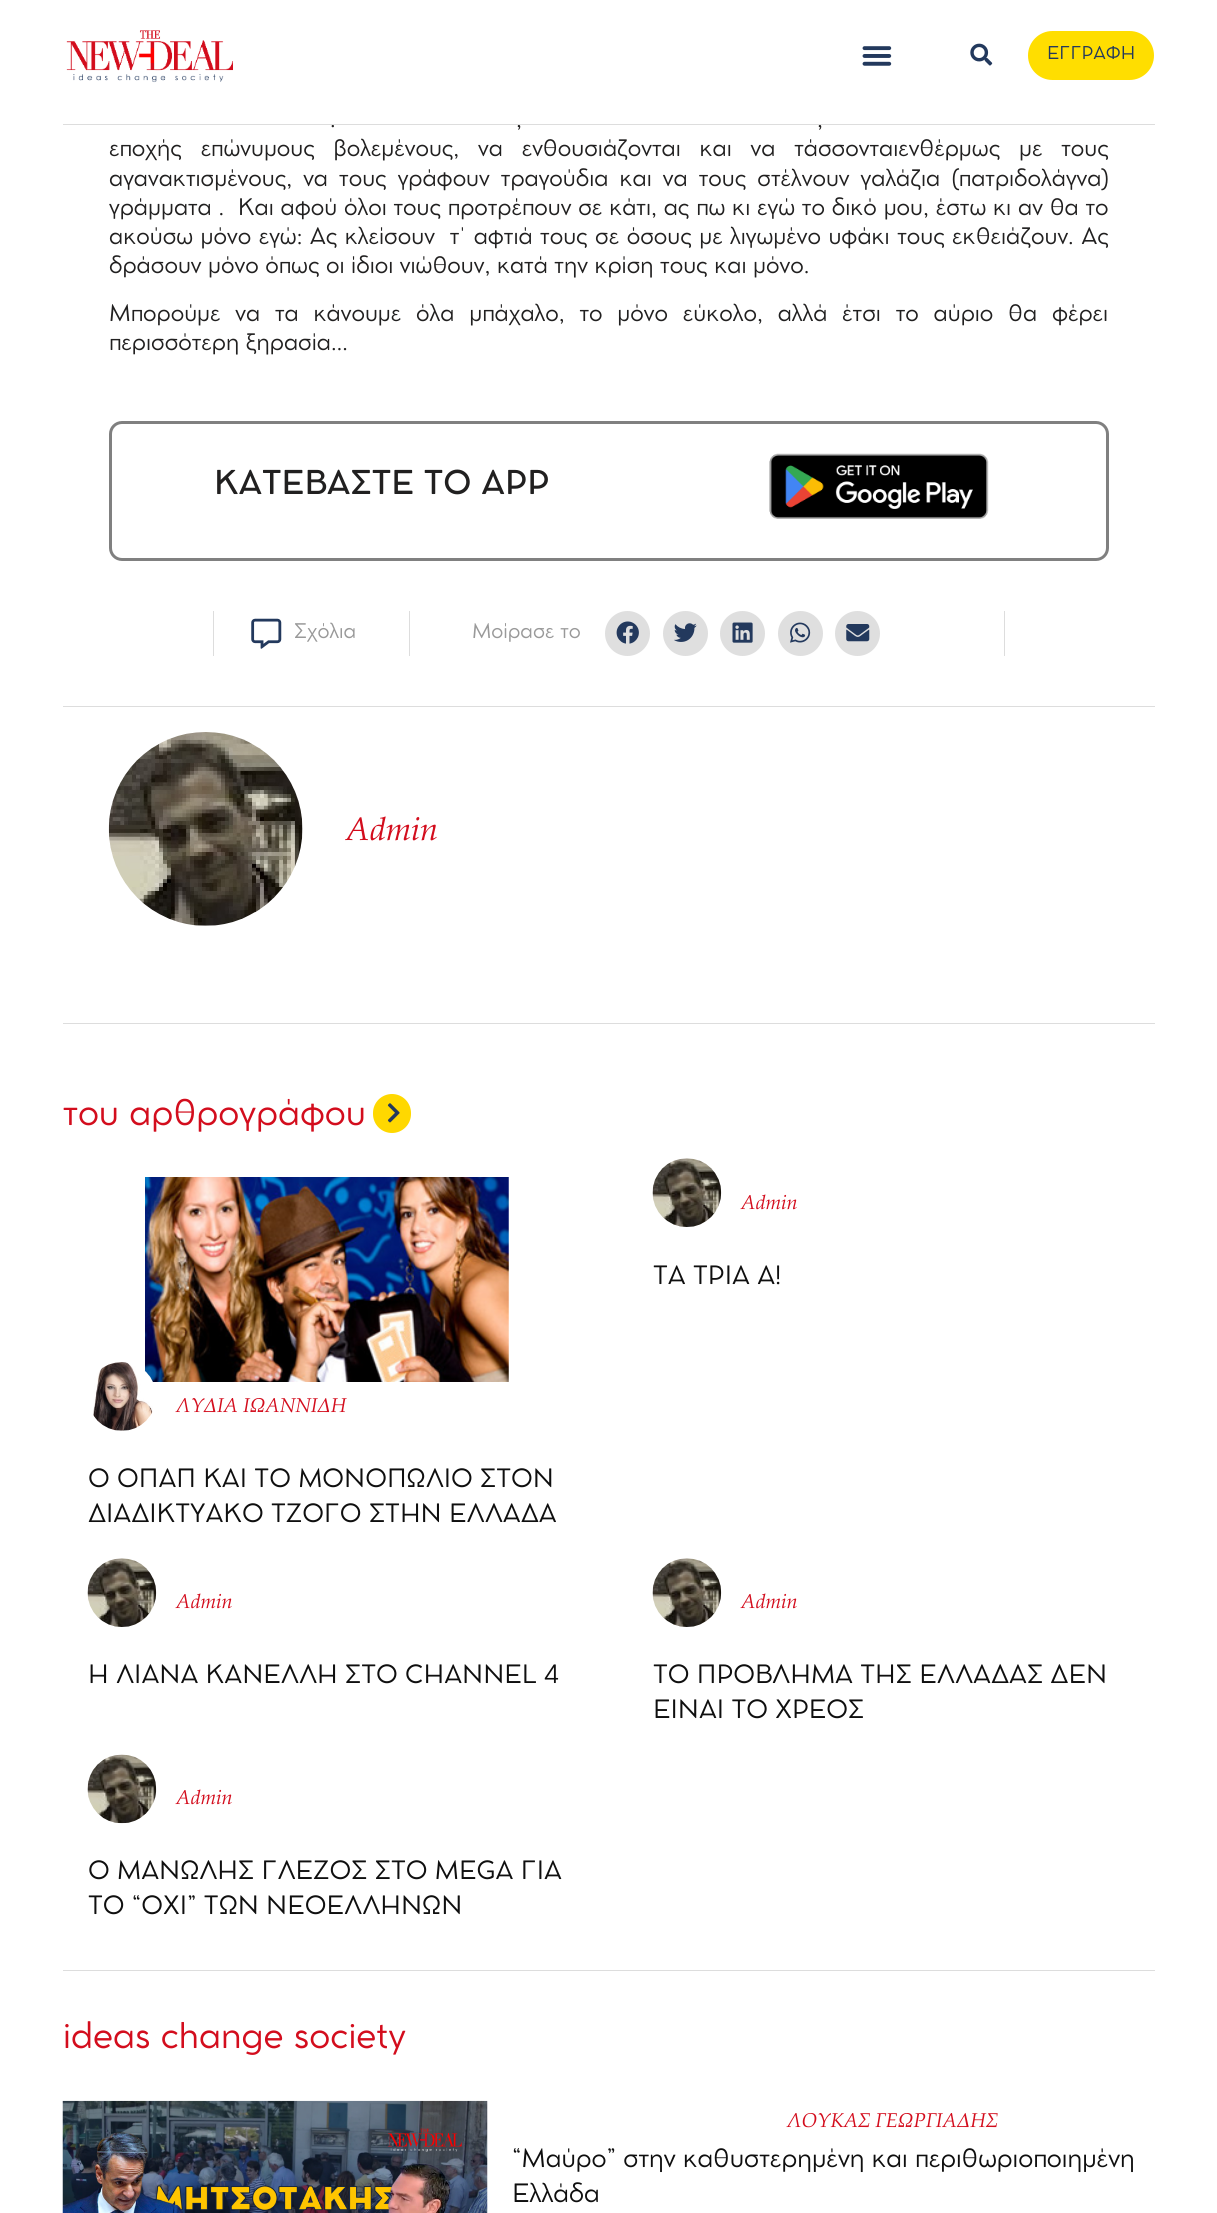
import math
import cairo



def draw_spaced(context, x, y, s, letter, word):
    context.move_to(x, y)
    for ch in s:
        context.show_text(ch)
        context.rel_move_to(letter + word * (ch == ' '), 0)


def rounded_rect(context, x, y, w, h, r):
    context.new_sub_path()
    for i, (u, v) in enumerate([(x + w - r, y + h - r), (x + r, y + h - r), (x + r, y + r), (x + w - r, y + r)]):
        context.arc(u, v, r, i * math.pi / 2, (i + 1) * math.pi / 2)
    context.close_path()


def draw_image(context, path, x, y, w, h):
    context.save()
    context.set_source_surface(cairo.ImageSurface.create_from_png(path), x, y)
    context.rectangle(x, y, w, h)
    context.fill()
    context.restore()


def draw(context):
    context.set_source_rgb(1, 1, 1)
    context.paint()
    draw_image(context, "images/1.png", 66, 30, 167, 53)
    draw_image(context, "images/2.png", 862, 46, 30, 20)
    draw_image(context, "images/3.png", 970, 43, 23, 23)
    context.set_source_rgb(1, 222 / 255, 0)
    rounded_rect(context, 1028, 31, 126, 49, 24.5)
    context.fill()
    rounded_rect(context, 110.5, 422.5, 997, 137, 11.5)
    context.set_source_rgb(128 / 255, 128 / 255, 128 / 255)
    context.set_line_width(3)
    context.stroke()
    draw_image(context, "images/4.png", 769, 453, 220, 66)
    context.set_source_rgb(221 / 255, 221 / 255, 221 / 255)
    context.rectangle(409, 611, 1, 45)
    context.fill()
    context.rectangle(213, 611, 1, 45)
    context.fill()
    draw_image(context, "images/5.png", 251, 618, 31, 31)
    context.rectangle(1004, 611, 1, 45)
    context.fill()
    context.set_source_rgb(223 / 255, 223 / 255, 223 / 255)
    context.arc(627.5, 633.5, 22.5, 0, 2 * math.pi)
    context.fill()
    draw_image(context, "images/6.png", 616, 621, 23, 23)
    context.arc(685.5, 633.5, 22.5, 0, 2 * math.pi)
    context.fill()
    draw_image(context, "images/7.png", 674, 623, 23, 19)
    context.arc(742.5, 633.5, 22.5, 0, 2 * math.pi)
    context.fill()
    draw_image(context, "images/8.png", 732, 622, 21, 21)
    context.arc(800.5, 633.5, 22.5, 0, 2 * math.pi)
    context.fill()
    draw_image(context, "images/9.png", 790, 622, 21, 21)
    context.arc(857.5, 633.5, 22.5, 0, 2 * math.pi)
    context.fill()
    draw_image(context, "images/10.png", 846, 624, 24, 18)
    context.set_source_rgb(221 / 255, 221 / 255, 221 / 255)
    context.rectangle(63, 706, 1092, 1)
    context.fill()
    context.rectangle(63, 1023, 1092, 1)
    context.fill()
    draw_image(context, "images/11.png", 108, 732, 195, 194)
    context.set_source_rgb(1, 216 / 255, 0)
    rounded_rect(context, 373, 1094, 38, 39, 19)
    context.fill()
    draw_image(context, "images/12.png", 387, 1103, 13, 20)
    draw_image(context, "images/13.png", 652, 1158, 70, 69)
    draw_image(context, "images/14.png", 145, 1177, 364, 205)
    draw_image(context, "images/15.png", 93, 1362, 60, 69)
    draw_image(context, "images/16.png", 87, 1558, 70, 69)
    draw_image(context, "images/13.png", 652, 1558, 70, 69)
    draw_image(context, "images/17.png", 87, 1754, 70, 70)
    context.set_source_rgb(221 / 255, 221 / 255, 221 / 255)
    context.rectangle(63, 1970, 1092, 1)
    context.fill()
    draw_image(context, "images/18.png", 62, 2100, 426, 113)
    context.select_font_face("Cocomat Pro")
    context.set_font_size(17.5)
    context.set_source_rgb(35 / 255, 57 / 255, 93 / 255)
    context.move_to(1047, 59)
    context.show_text("ΕΓΓΡΑΦΗ")
    context.set_font_size(22.5)
    context.set_source_rgb(33 / 255, 32 / 255, 32 / 255)
    draw_spaced(context, 330, 127, ".", 0, 4.5)
    draw_spaced(context, 516, 127, ",", 0, 4.5)
    draw_spaced(context, 817, 127, ",", 0, 4.5)
    context.set_source_rgb(1, 1, 1)
    context.rectangle(333, 124, 487, 1)
    context.fill()
    context.set_source_rgb(221 / 255, 221 / 255, 221 / 255)
    context.rectangle(63, 124, 1092, 1)
    context.fill()
    context.set_source_rgb(33 / 255, 32 / 255, 32 / 255)
    draw_spaced(context, 109, 156, "εποχής επώνυμους βολεμένους, να ενθουσιάζονται και να τάσσονταιενθέρμως με τους", 0, 12.25)
    draw_spaced(context, 109, 186, "αγανακτισμένους, να τους γράφουν τραγούδια και να τους στέλνουν γαλάζια (πατριδολάγνα)", 0, 4.5)
    draw_spaced(context, 109, 215, "γράμματα .  Και αφού όλοι τους προτρέπουν σε κάτι, ας πω κι εγώ το δικό μου, έστω κι αν θα το", 0, 0.25)
    draw_spaced(context, 109, 244, "ακούσω μόνο εγώ: Ας κλείσουν  τ΄ αφτιά τους σε όσους με λιγωμένο υφάκι τους εκθειάζουν. Ας", 0, 0.9)
    context.move_to(109, 273)
    context.show_text("δράσουν μόνο όπως οι ίδιοι νιώθουν, κατά την κρίση τους και μόνο.")
    draw_spaced(context, 109, 321, "Μπορούμε να τα κάνουμε όλα μπάχαλο, το μόνο εύκολο, αλλά έτσι το αύριο θα φέρει", 0, 8.25)
    context.move_to(109, 350)
    context.show_text("περισσότερη ξηρασία…")
    context.select_font_face("Cocomat Pro Medium")
    context.set_font_size(32.5)
    context.move_to(214, 494)
    context.show_text("ΚΑΤΕΒΑΣΤΕ ΤΟ APP")
    context.select_font_face("Cocomat Pro")
    context.set_font_size(20)
    context.set_source_rgb(153 / 255, 153 / 255, 153 / 255)
    context.move_to(294, 638)
    context.show_text("Σχόλια")
    context.move_to(472, 638)
    context.show_text("Μοίρασε το")
    context.select_font_face("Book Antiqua", cairo.FontSlant.ITALIC)
    context.set_font_size(32.5)
    context.set_source_rgb(211 / 255, 13 / 255, 29 / 255)
    context.move_to(346, 840)
    context.show_text("Admin")
    context.select_font_face("Cocomat Pro")
    context.set_font_size(35)
    context.move_to(63, 1125)
    context.show_text("του αρθρογράφου")
    context.select_font_face("Book Antiqua", cairo.FontSlant.ITALIC)
    context.set_font_size(20)
    context.move_to(741, 1209)
    context.show_text("Admin")
    context.select_font_face("Cocomat Pro")
    context.set_font_size(25)
    context.set_source_rgb(15 / 255, 15 / 255, 15 / 255)
    context.move_to(653, 1284)
    context.show_text("ΤΑ ΤΡΙΑ Α!")
    context.select_font_face("Book Antiqua", cairo.FontSlant.ITALIC)
    context.set_font_size(20)
    context.set_source_rgb(211 / 255, 13 / 255, 29 / 255)
    context.move_to(176, 1412)
    context.show_text("ΛΥΔΙΑ ΙΩΑΝΝΙΔΗ")
    context.select_font_face("Cocomat Pro")
    context.set_font_size(25)
    context.set_source_rgb(15 / 255, 15 / 255, 15 / 255)
    context.move_to(88, 1487)
    context.show_text("O ΟΠΑΠ ΚΑΙ ΤΟ ΜΟΝΟΠΩΛΙΟ ΣΤΟΝ")
    context.move_to(88, 1522)
    context.show_text("ΔΙΑΔΙΚΤΥΑΚΟ ΤΖΟΓΟ ΣΤΗΝ ΕΛΛΑΔΑ")
    context.select_font_face("Book Antiqua", cairo.FontSlant.ITALIC)
    context.set_font_size(20)
    context.set_source_rgb(211 / 255, 13 / 255, 29 / 255)
    context.move_to(176, 1608)
    context.show_text("Admin")
    context.select_font_face("Cocomat Pro")
    context.set_font_size(25)
    context.set_source_rgb(15 / 255, 15 / 255, 15 / 255)
    context.move_to(88, 1683)
    context.show_text("Η ΛΙΑΝΑ ΚΑΝΕΛΛΗ ΣΤΟ CHΑΝΝΕL 4")
    context.select_font_face("Book Antiqua", cairo.FontSlant.ITALIC)
    context.set_font_size(20)
    context.set_source_rgb(211 / 255, 13 / 255, 29 / 255)
    context.move_to(741, 1608)
    context.show_text("Admin")
    context.select_font_face("Cocomat Pro")
    context.set_font_size(25)
    context.set_source_rgb(15 / 255, 15 / 255, 15 / 255)
    context.move_to(653, 1683)
    context.show_text("ΤΟ ΠΡΟΒΛΗΜΑ ΤΗΣ ΕΛΛΑΔΑΣ ΔΕΝ")
    context.move_to(653, 1718)
    context.show_text("ΕΙΝΑΙ ΤΟ ΧΡΕΟΣ")
    context.select_font_face("Book Antiqua", cairo.FontSlant.ITALIC)
    context.set_font_size(20)
    context.set_source_rgb(211 / 255, 13 / 255, 29 / 255)
    context.move_to(176, 1804)
    context.show_text("Admin")
    context.select_font_face("Cocomat Pro")
    context.set_font_size(25)
    context.set_source_rgb(15 / 255, 15 / 255, 15 / 255)
    context.move_to(88, 1879)
    context.show_text("Ο ΜΑΝΩΛΗΣ ΓΛΕΖΟΣ ΣΤΟ MEGA ΓΙΑ")
    context.move_to(88, 1914)
    context.show_text("ΤΟ “ΟΧΙ” ΤΩΝ ΝΕΟΕΛΛΗΝΩΝ")
    context.set_font_size(35)
    context.set_source_rgb(211 / 255, 13 / 255, 29 / 255)
    context.move_to(63, 2048)
    context.show_text("ideas change society")
    context.select_font_face("Book Antiqua", cairo.FontSlant.ITALIC)
    context.set_font_size(20)
    context.move_to(787, 2127)
    context.show_text("ΛΟΥΚΑΣ ΓΕΩΡΓΙΑΔΗΣ")
    context.select_font_face("Cocomat Pro")
    context.set_font_size(25)
    context.set_source_rgb(15 / 255, 15 / 255, 15 / 255)
    context.move_to(512, 2167)
    context.show_text("“Μαύρο” στην καθυστερημένη και περιθωριοποιημένη")
    context.move_to(512, 2202)
    context.show_text("Ελλάδα")


surface = cairo.ImageSurface(cairo.Format.RGB24, 1217, 2213)
context = cairo.Context(surface)
options = cairo.FontOptions()
options.set_hint_metrics(cairo.HintMetrics.OFF)
options.set_hint_style(cairo.HintStyle.NONE)
context.set_font_options(options)
context.set_miter_limit(4)
draw(context)
surface.write_to_png("out.png")
